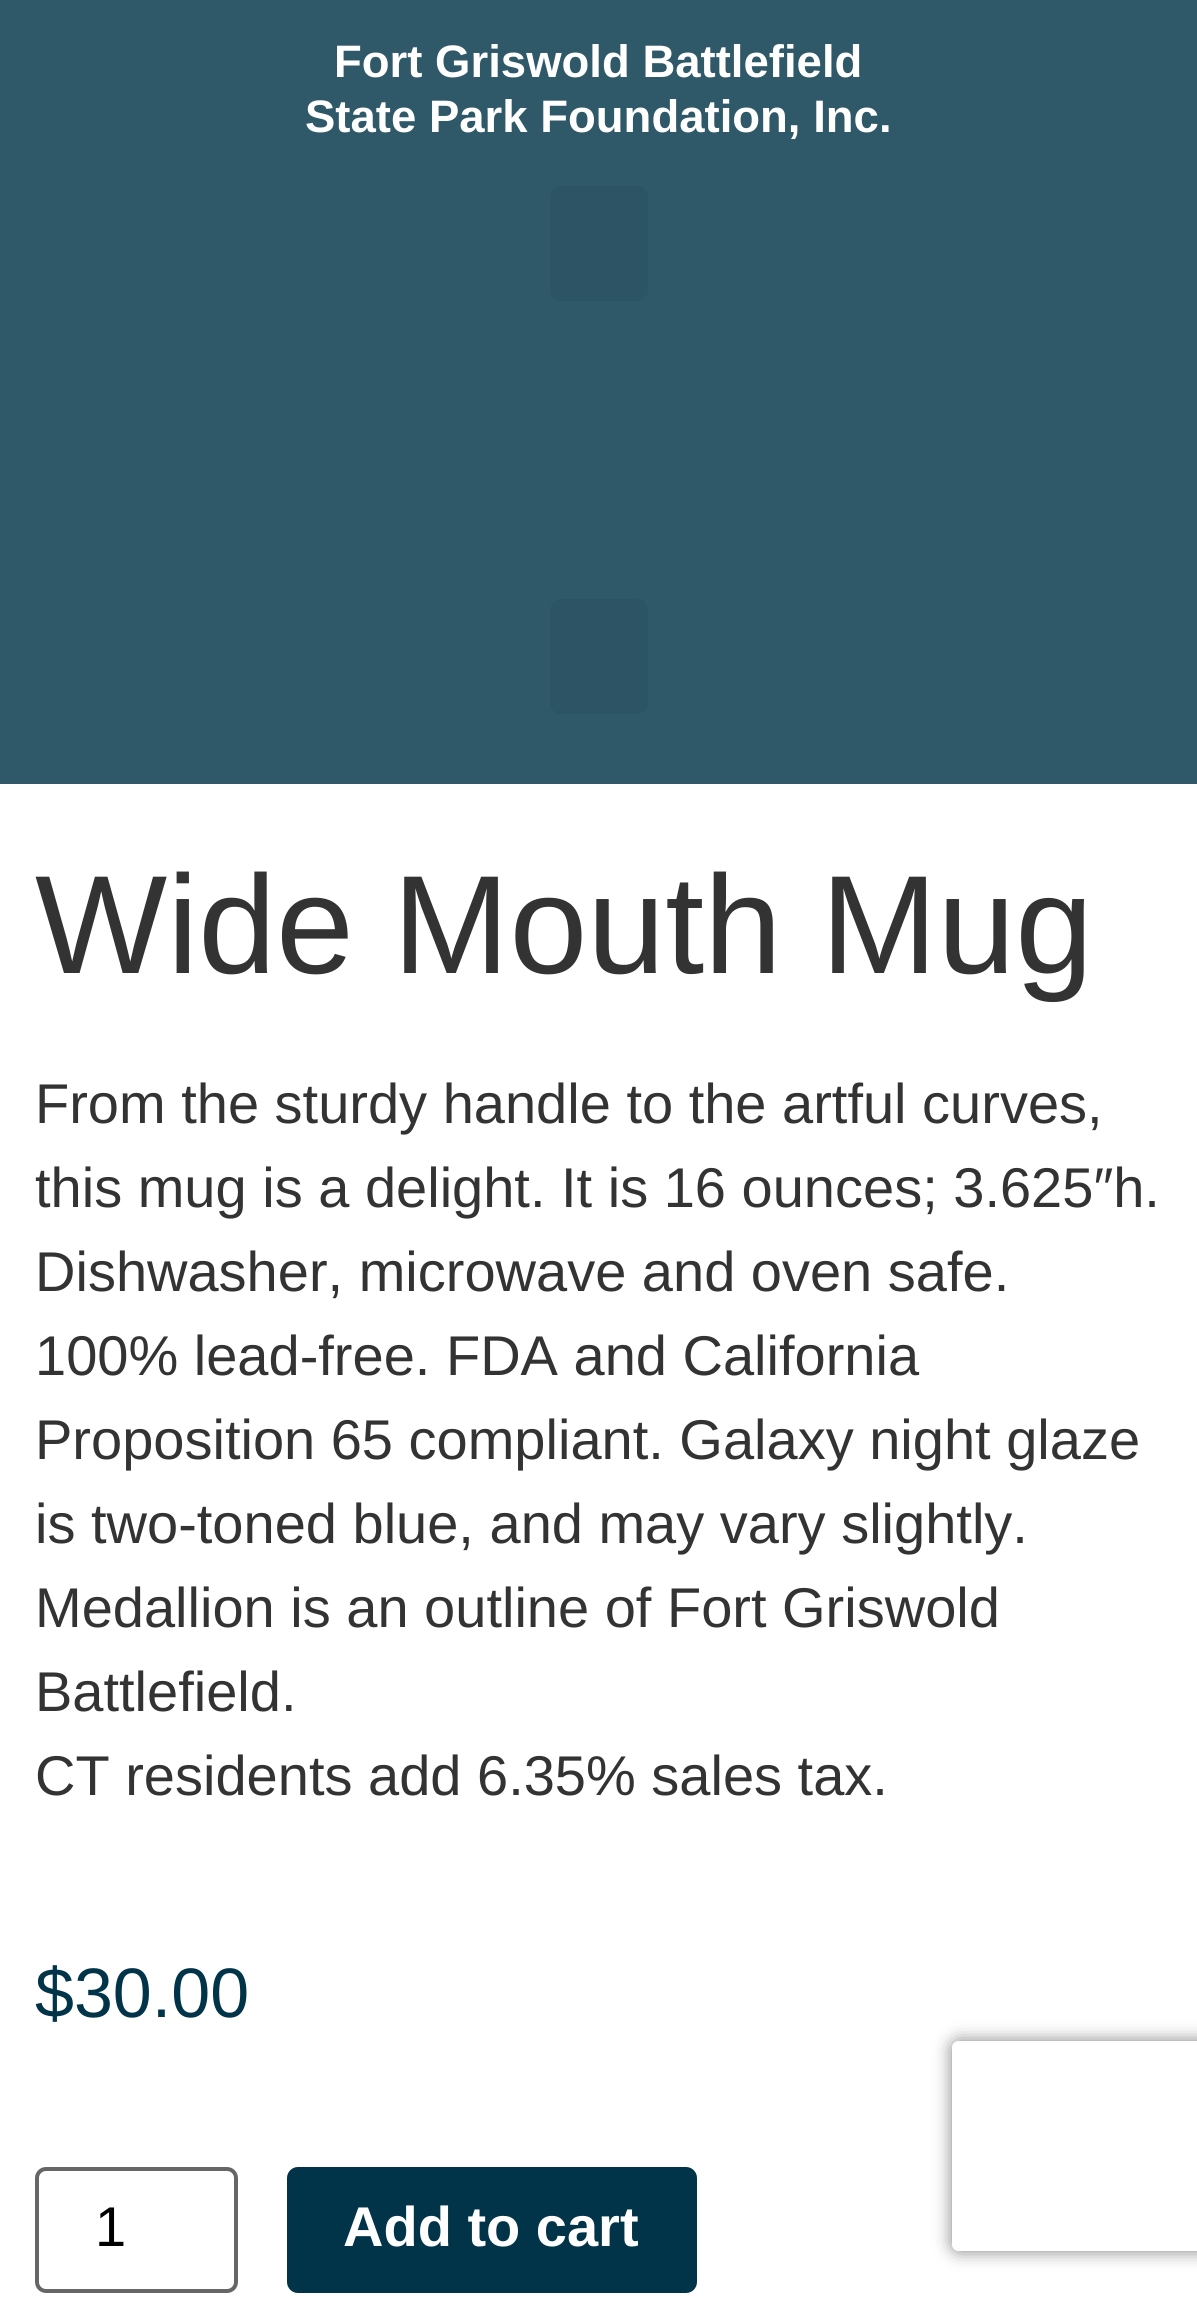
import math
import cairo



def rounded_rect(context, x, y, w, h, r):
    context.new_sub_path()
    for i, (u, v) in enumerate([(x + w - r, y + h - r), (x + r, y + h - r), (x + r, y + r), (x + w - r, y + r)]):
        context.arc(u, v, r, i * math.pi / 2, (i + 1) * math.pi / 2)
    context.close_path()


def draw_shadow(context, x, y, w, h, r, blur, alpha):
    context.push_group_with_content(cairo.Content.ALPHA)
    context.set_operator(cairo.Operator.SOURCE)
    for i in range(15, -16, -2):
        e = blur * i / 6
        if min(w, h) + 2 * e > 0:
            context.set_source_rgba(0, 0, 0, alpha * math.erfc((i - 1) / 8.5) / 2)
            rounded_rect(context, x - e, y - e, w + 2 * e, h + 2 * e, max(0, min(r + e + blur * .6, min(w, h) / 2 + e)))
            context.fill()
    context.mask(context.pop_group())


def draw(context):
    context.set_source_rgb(1, 1, 1)
    context.paint()
    context.set_source_rgb(47 / 255, 88 / 255, 105 / 255)
    context.rectangle(0, 0, 1197, 784)
    context.fill()
    context.set_source_rgb(45 / 255, 84 / 255, 100 / 255)
    rounded_rect(context, 550, 186, 98, 115, 11)
    context.fill()
    rounded_rect(context, 550, 599, 98, 115, 11)
    context.fill()
    rounded_rect(context, 37, 2169, 199, 122, 9)
    context.set_source_rgb(102 / 255, 102 / 255, 102 / 255)
    context.set_line_width(4)
    context.stroke()
    context.set_source_rgb(2 / 255, 52 / 255, 73 / 255)
    rounded_rect(context, 287, 2167, 410, 126, 11)
    context.fill()
    context.save()
    context.set_fill_rule(cairo.FillRule.EVEN_ODD)
    context.new_path()
    context.move_to(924, 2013)
    context.line_to(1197, 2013)
    context.line_to(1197, 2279)
    context.line_to(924, 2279)
    context.close_path()
    context.move_to(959, 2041)
    context.line_to(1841, 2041)
    context.curve_to(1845, 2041, 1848, 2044, 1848, 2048)
    context.line_to(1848, 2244)
    context.curve_to(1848, 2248, 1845, 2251, 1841, 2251)
    context.line_to(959, 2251)
    context.curve_to(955, 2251, 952, 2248, 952, 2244)
    context.line_to(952, 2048)
    context.curve_to(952, 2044, 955, 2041, 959, 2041)
    context.close_path()
    context.clip()
    context.set_source_rgb(128 / 255, 128 / 255, 128 / 255)
    draw_shadow(context, 952, 2041, 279, 210, 7, 9, 1)
    context.restore()
    context.select_font_face("Liberation Sans", cairo.FontSlant.NORMAL, cairo.FontWeight.BOLD)
    context.set_font_size(45.5)
    context.set_source_rgb(1, 1, 1)
    context.move_to(334, 77)
    context.show_text("Fort Griswold Battlefield")
    context.move_to(305, 132)
    context.show_text("State Park Foundation, Inc.")
    context.select_font_face("Liberation Sans")
    context.set_font_size(140)
    context.set_source_rgb(51 / 255, 51 / 255, 51 / 255)
    context.move_to(35, 973)
    context.show_text("Wide Mouth Mug")
    context.set_font_size(56)
    context.move_to(35, 1123)
    context.show_text("From the sturdy handle to the artful curves,")
    context.move_to(35, 1207)
    context.show_text("this mug is a delight. It is 16 ounces; 3.625″h.")
    context.move_to(35, 1291)
    context.show_text("Dishwasher, microwave and oven safe.")
    context.move_to(35, 1375)
    context.show_text("100% lead-free. FDA and California")
    context.move_to(35, 1459)
    context.show_text("Proposition 65 compliant. Galaxy night glaze")
    context.move_to(35, 1543)
    context.show_text("is two-toned blue, and may vary slightly.")
    context.move_to(35, 1627)
    context.show_text("Medallion is an outline of Fort Griswold")
    context.move_to(35, 1711)
    context.show_text("Battlefield.")
    context.move_to(35, 1795)
    context.show_text("CT residents add 6.35% sales tax.")
    context.set_font_size(70)
    context.set_source_rgb(2 / 255, 52 / 255, 73 / 255)
    context.move_to(35, 2017)
    context.show_text("$30.00")
    context.set_font_size(56)
    context.set_source_rgb(0, 0, 0)
    context.move_to(95, 2246)
    context.show_text("1")
    context.select_font_face("Liberation Sans", cairo.FontSlant.NORMAL, cairo.FontWeight.BOLD)
    context.set_source_rgb(1, 1, 1)
    context.move_to(343, 2246)
    context.show_text("Add to cart")


surface = cairo.ImageSurface(cairo.Format.RGB24, 1197, 2299)
context = cairo.Context(surface)
options = cairo.FontOptions()
options.set_hint_metrics(cairo.HintMetrics.OFF)
options.set_hint_style(cairo.HintStyle.NONE)
context.set_font_options(options)
context.set_miter_limit(4)
draw(context)
surface.write_to_png("out.png")
